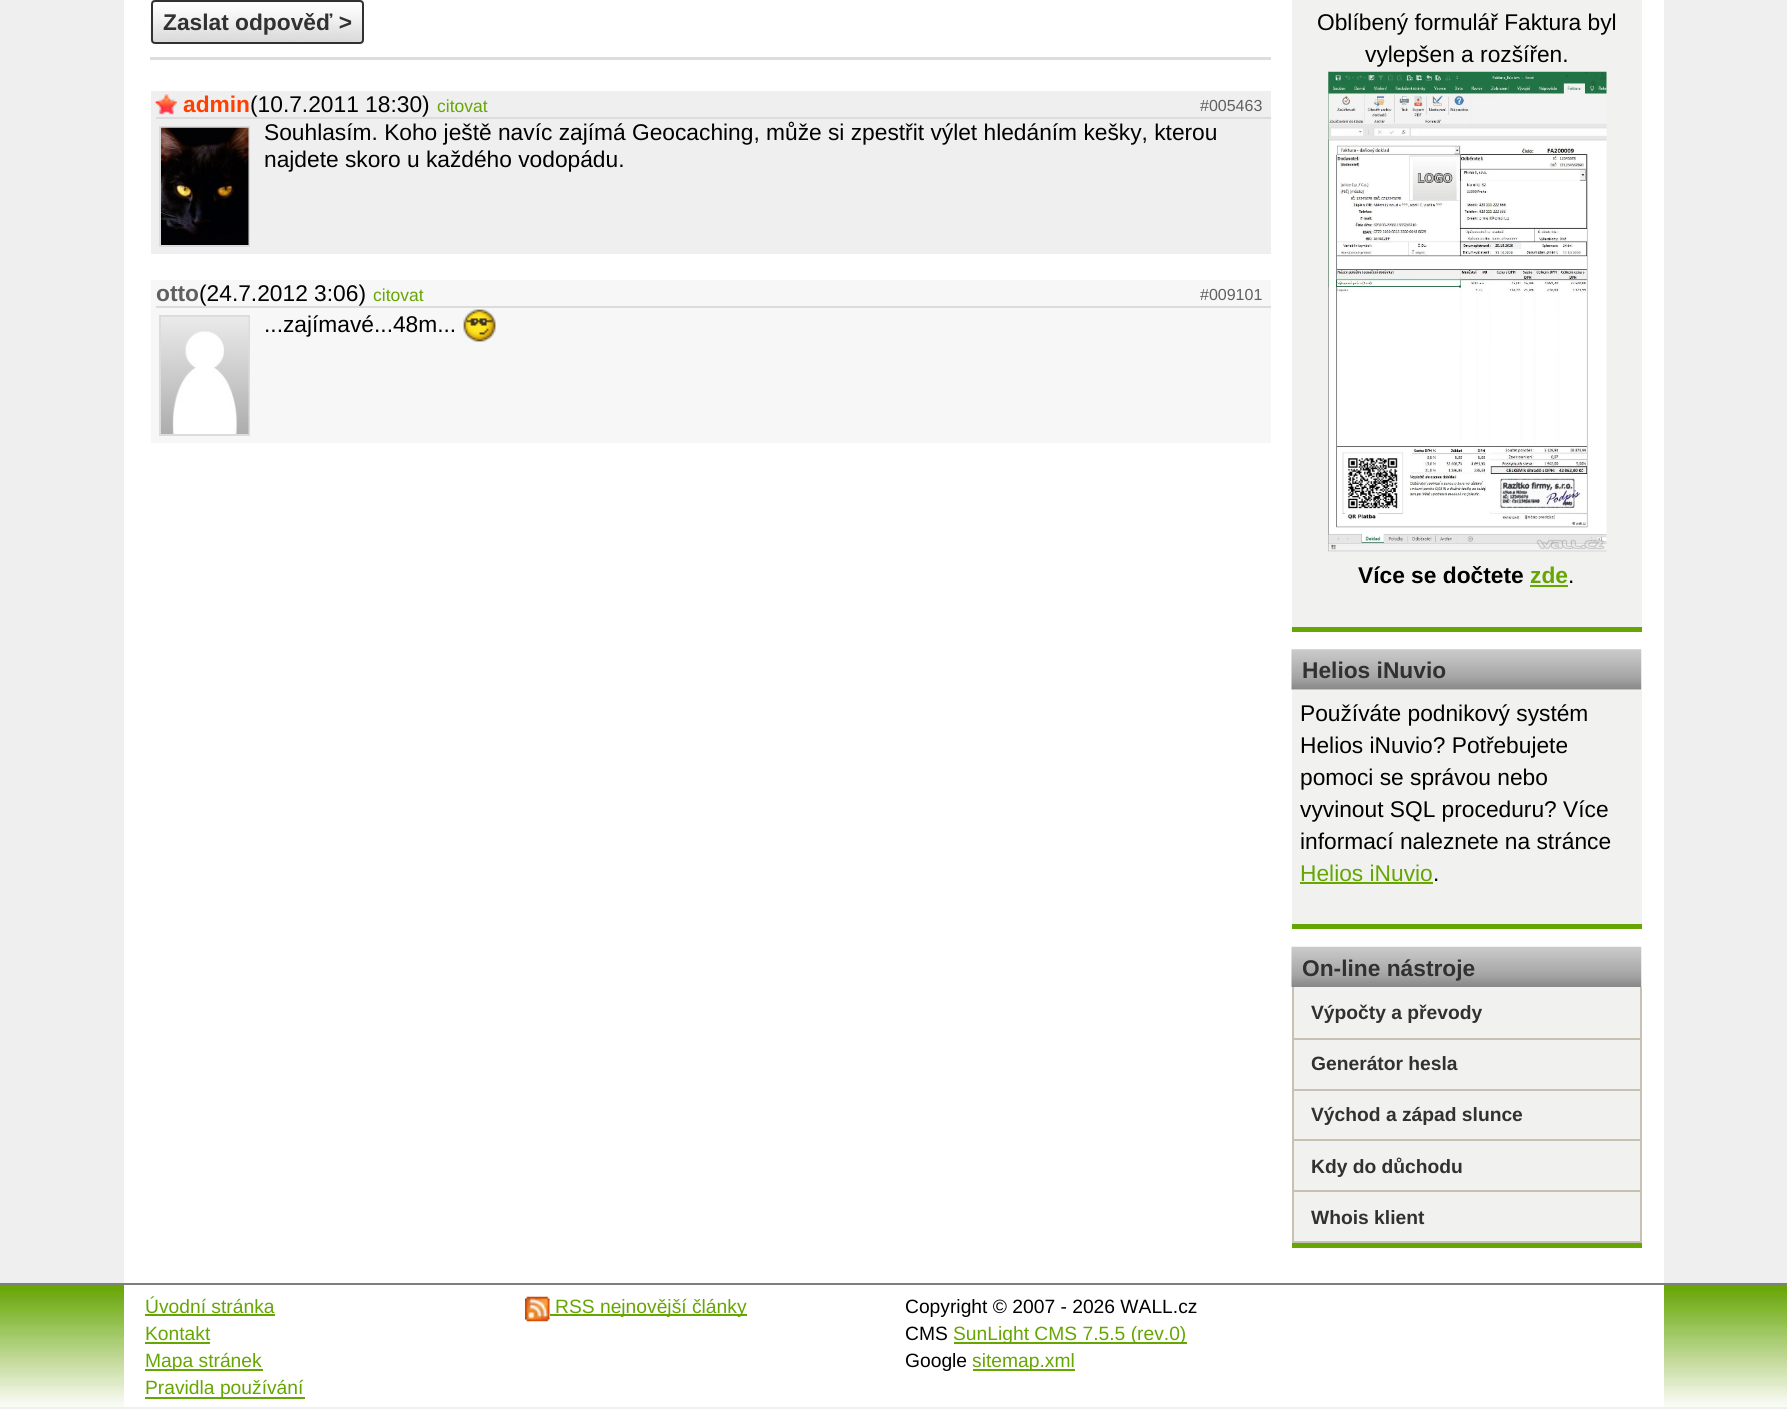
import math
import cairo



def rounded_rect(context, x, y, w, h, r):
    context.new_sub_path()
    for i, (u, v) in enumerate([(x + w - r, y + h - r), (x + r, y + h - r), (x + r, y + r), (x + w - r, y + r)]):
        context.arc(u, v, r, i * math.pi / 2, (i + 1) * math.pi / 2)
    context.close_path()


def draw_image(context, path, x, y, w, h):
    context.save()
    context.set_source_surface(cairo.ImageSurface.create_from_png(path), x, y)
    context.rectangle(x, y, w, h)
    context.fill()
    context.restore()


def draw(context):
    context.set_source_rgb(239 / 255, 239 / 255, 239 / 255)
    context.paint()
    context.set_source_rgb(1, 1, 1)
    context.rectangle(124, 0, 1540, 1283)
    context.fill()
    draw_image(context, "images/1.png", 150, 0, 214, 44)
    rounded_rect(context, 152, 1, 211, 42, 3)
    context.set_source_rgb(49 / 255, 49 / 255, 49 / 255)
    context.stroke()
    context.set_source_rgb(220 / 255, 222 / 255, 220 / 255)
    context.rectangle(150, 57, 1121, 3)
    context.fill()
    context.set_source_rgb(239 / 255, 239 / 255, 239 / 255)
    context.rectangle(151, 91, 1120, 163)
    context.fill()
    context.set_source_rgb(220 / 255, 220 / 255, 220 / 255)
    context.rectangle(156, 117, 1115, 2)
    context.fill()
    draw_image(context, "images/2.png", 155, 94, 22, 21)
    context.rectangle(160, 127, 89, 119)
    context.stroke()
    draw_image(context, "images/3.png", 161, 127, 88, 118)
    context.set_source_rgb(247 / 255, 247 / 255, 247 / 255)
    context.rectangle(151, 280, 1120, 163)
    context.fill()
    context.set_source_rgb(220 / 255, 220 / 255, 220 / 255)
    context.rectangle(156, 306, 1115, 2)
    context.fill()
    context.rectangle(160, 316, 89, 119)
    context.stroke()
    draw_image(context, "images/4.png", 161, 317, 88, 117)
    draw_image(context, "images/5.png", 463, 309, 33, 33)
    context.set_source_rgb(241 / 255, 241 / 255, 240 / 255)
    context.rectangle(1292, 0, 350, 627)
    context.fill()
    context.set_source_rgb(101 / 255, 166 / 255, 2 / 255)
    context.rectangle(1292, 627, 350, 5)
    context.fill()
    draw_image(context, "images/6.png", 1328, 71, 279, 481)
    context.rectangle(1530, 585, 38, 2)
    context.fill()
    draw_image(context, "images/7.png", 1291, 649, 351, 41)
    context.set_source_rgb(241 / 255, 241 / 255, 240 / 255)
    context.rectangle(1292, 690, 350, 234)
    context.fill()
    context.set_source_rgb(101 / 255, 166 / 255, 2 / 255)
    context.rectangle(1292, 924, 350, 5)
    context.fill()
    context.rectangle(1300, 882, 133, 2)
    context.fill()
    draw_image(context, "images/8.png", 1291, 946, 351, 41)
    context.set_source_rgb(241 / 255, 241 / 255, 240 / 255)
    context.rectangle(1294, 987, 346, 254)
    context.fill()
    context.set_source_rgb(101 / 255, 166 / 255, 2 / 255)
    context.rectangle(1292, 1243, 350, 5)
    context.fill()
    context.set_source_rgb(200 / 255, 192 / 255, 179 / 255)
    context.rectangle(1640, 987, 2, 103)
    context.fill()
    context.rectangle(1292, 1038, 350, 2)
    context.fill()
    context.rectangle(1292, 987, 2, 53)
    context.fill()
    context.rectangle(1292, 1089, 350, 2)
    context.fill()
    context.rectangle(1292, 1040, 2, 50)
    context.fill()
    context.rectangle(1640, 1090, 2, 153)
    context.fill()
    context.rectangle(1292, 1139, 350, 2)
    context.fill()
    context.rectangle(1292, 1090, 2, 51)
    context.fill()
    context.rectangle(1292, 1190, 350, 2)
    context.fill()
    context.rectangle(1292, 1141, 2, 51)
    context.fill()
    context.rectangle(1292, 1241, 350, 2)
    context.fill()
    context.rectangle(1292, 1192, 2, 51)
    context.fill()
    draw_image(context, "images/9.png", 0, 1285, 1787, 122)
    context.set_source_rgb(126 / 255, 126 / 255, 126 / 255)
    context.rectangle(0, 1283, 1787, 2)
    context.fill()
    context.set_source_rgb(1, 1, 1)
    context.rectangle(124, 1285, 1540, 122)
    context.fill()
    context.set_source_rgb(101 / 255, 166 / 255, 2 / 255)
    context.rectangle(145, 1314, 130, 2)
    context.fill()
    context.rectangle(145, 1342, 65, 2)
    context.fill()
    context.rectangle(145, 1369, 118, 2)
    context.fill()
    context.rectangle(145, 1397, 160, 2)
    context.fill()
    draw_image(context, "images/10.png", 525, 1296, 25, 26)
    context.rectangle(550, 1314, 197, 2)
    context.fill()
    context.rectangle(954, 1342, 233, 2)
    context.fill()
    context.rectangle(973, 1369, 102, 2)
    context.fill()
    context.select_font_face("Liberation Sans", cairo.FontSlant.NORMAL, cairo.FontWeight.BOLD)
    context.set_font_size(22.75)
    context.set_source_rgb(49 / 255, 49 / 255, 49 / 255)
    context.move_to(163, 30)
    context.show_text("Zaslat odpověď >")
    context.set_source_rgb(1, 64 / 255, 0)
    context.move_to(183, 112)
    context.show_text("admin")
    context.select_font_face("Liberation Sans")
    context.set_source_rgb(0, 0, 0)
    context.move_to(250, 112)
    context.show_text("(10.7.2011 18:30)")
    context.set_font_size(17.5)
    context.set_source_rgb(101 / 255, 166 / 255, 2 / 255)
    context.move_to(437, 112)
    context.show_text("citovat")
    context.set_font_size(16)
    context.set_source_rgb(96 / 255, 96 / 255, 96 / 255)
    context.move_to(1200, 111)
    context.show_text("#005463")
    context.set_font_size(22.75)
    context.set_source_rgb(0, 0, 0)
    context.move_to(264, 140)
    context.show_text("Souhlasím. Koho ještě navíc zajímá Geocaching, může si zpestřit výlet hledáním kešky, kterou")
    context.move_to(264, 167)
    context.show_text("najdete skoro u každého vodopádu.")
    context.select_font_face("Liberation Sans", cairo.FontSlant.NORMAL, cairo.FontWeight.BOLD)
    context.set_source_rgb(96 / 255, 96 / 255, 96 / 255)
    context.move_to(156, 301)
    context.show_text("otto")
    context.select_font_face("Liberation Sans")
    context.set_source_rgb(0, 0, 0)
    context.move_to(199, 301)
    context.show_text("(24.7.2012 3:06)")
    context.set_font_size(17.5)
    context.set_source_rgb(101 / 255, 166 / 255, 2 / 255)
    context.move_to(373, 301)
    context.show_text("citovat")
    context.set_font_size(16)
    context.set_source_rgb(96 / 255, 96 / 255, 96 / 255)
    context.move_to(1200, 300)
    context.show_text("#009101")
    context.set_font_size(22.75)
    context.set_source_rgb(0, 0, 0)
    context.move_to(264, 332)
    context.show_text("...zajímavé...48m...")
    context.move_to(1317, 30)
    context.show_text("Oblíbený formulář Faktura byl")
    context.move_to(1365, 62)
    context.show_text("vylepšen a rozšířen.")
    context.select_font_face("Liberation Sans", cairo.FontSlant.NORMAL, cairo.FontWeight.BOLD)
    context.move_to(1358, 583)
    context.show_text("Více se dočtete")
    context.set_source_rgb(101 / 255, 166 / 255, 2 / 255)
    context.move_to(1530, 583)
    context.show_text("zde")
    context.select_font_face("Liberation Sans")
    context.set_source_rgb(0, 0, 0)
    context.move_to(1568, 583)
    context.show_text(".")
    context.select_font_face("Liberation Sans", cairo.FontSlant.NORMAL, cairo.FontWeight.BOLD)
    context.set_source_rgb(49 / 255, 49 / 255, 49 / 255)
    context.move_to(1302, 678)
    context.show_text("Helios iNuvio")
    context.select_font_face("Liberation Sans")
    context.set_source_rgb(0, 0, 0)
    context.move_to(1300, 721)
    context.show_text("Používáte podnikový systém")
    context.move_to(1300, 753)
    context.show_text("Helios iNuvio? Potřebujete")
    context.move_to(1300, 785)
    context.show_text("pomoci se správou nebo")
    context.move_to(1300, 817)
    context.show_text("vyvinout SQL proceduru? Více")
    context.move_to(1300, 849)
    context.show_text("informací naleznete na stránce")
    context.set_source_rgb(101 / 255, 166 / 255, 2 / 255)
    context.move_to(1300, 881)
    context.show_text("Helios iNuvio")
    context.set_source_rgb(0, 0, 0)
    context.move_to(1433, 881)
    context.show_text(".")
    context.select_font_face("Liberation Sans", cairo.FontSlant.NORMAL, cairo.FontWeight.BOLD)
    context.set_source_rgb(49 / 255, 49 / 255, 49 / 255)
    context.move_to(1302, 976)
    context.show_text("On-line nástroje")
    context.set_font_size(19.25)
    context.move_to(1311, 1019)
    context.show_text("Výpočty a převody")
    context.move_to(1311, 1070)
    context.show_text("Generátor hesla")
    context.move_to(1311, 1121)
    context.show_text("Východ a západ slunce")
    context.move_to(1311, 1173)
    context.show_text("Kdy do důchodu")
    context.move_to(1311, 1224)
    context.show_text("Whois klient")
    context.select_font_face("Liberation Sans")
    context.set_source_rgb(101 / 255, 166 / 255, 2 / 255)
    context.move_to(145, 1313)
    context.show_text("Úvodní stránka")
    context.move_to(145, 1340)
    context.show_text("Kontakt")
    context.move_to(145, 1367)
    context.show_text("Mapa stránek")
    context.move_to(145, 1394)
    context.show_text("Pravidla používání")
    context.move_to(555, 1313)
    context.show_text("RSS nejnovější články")
    context.set_source_rgb(0, 0, 0)
    context.move_to(905, 1313)
    context.show_text("Copyright © 2007 - 2026 WALL.cz")
    context.move_to(905, 1340)
    context.show_text("CMS")
    context.set_source_rgb(101 / 255, 166 / 255, 2 / 255)
    context.move_to(953, 1340)
    context.show_text("SunLight CMS 7.5.5 (rev.0)")
    context.set_source_rgb(0, 0, 0)
    context.move_to(905, 1367)
    context.show_text("Google")
    context.set_source_rgb(101 / 255, 166 / 255, 2 / 255)
    context.move_to(972, 1367)
    context.show_text("sitemap.xml")


surface = cairo.ImageSurface(cairo.Format.RGB24, 1787, 1409)
context = cairo.Context(surface)
options = cairo.FontOptions()
options.set_hint_metrics(cairo.HintMetrics.OFF)
options.set_hint_style(cairo.HintStyle.NONE)
context.set_font_options(options)
context.set_miter_limit(4)
draw(context)
surface.write_to_png("out.png")
